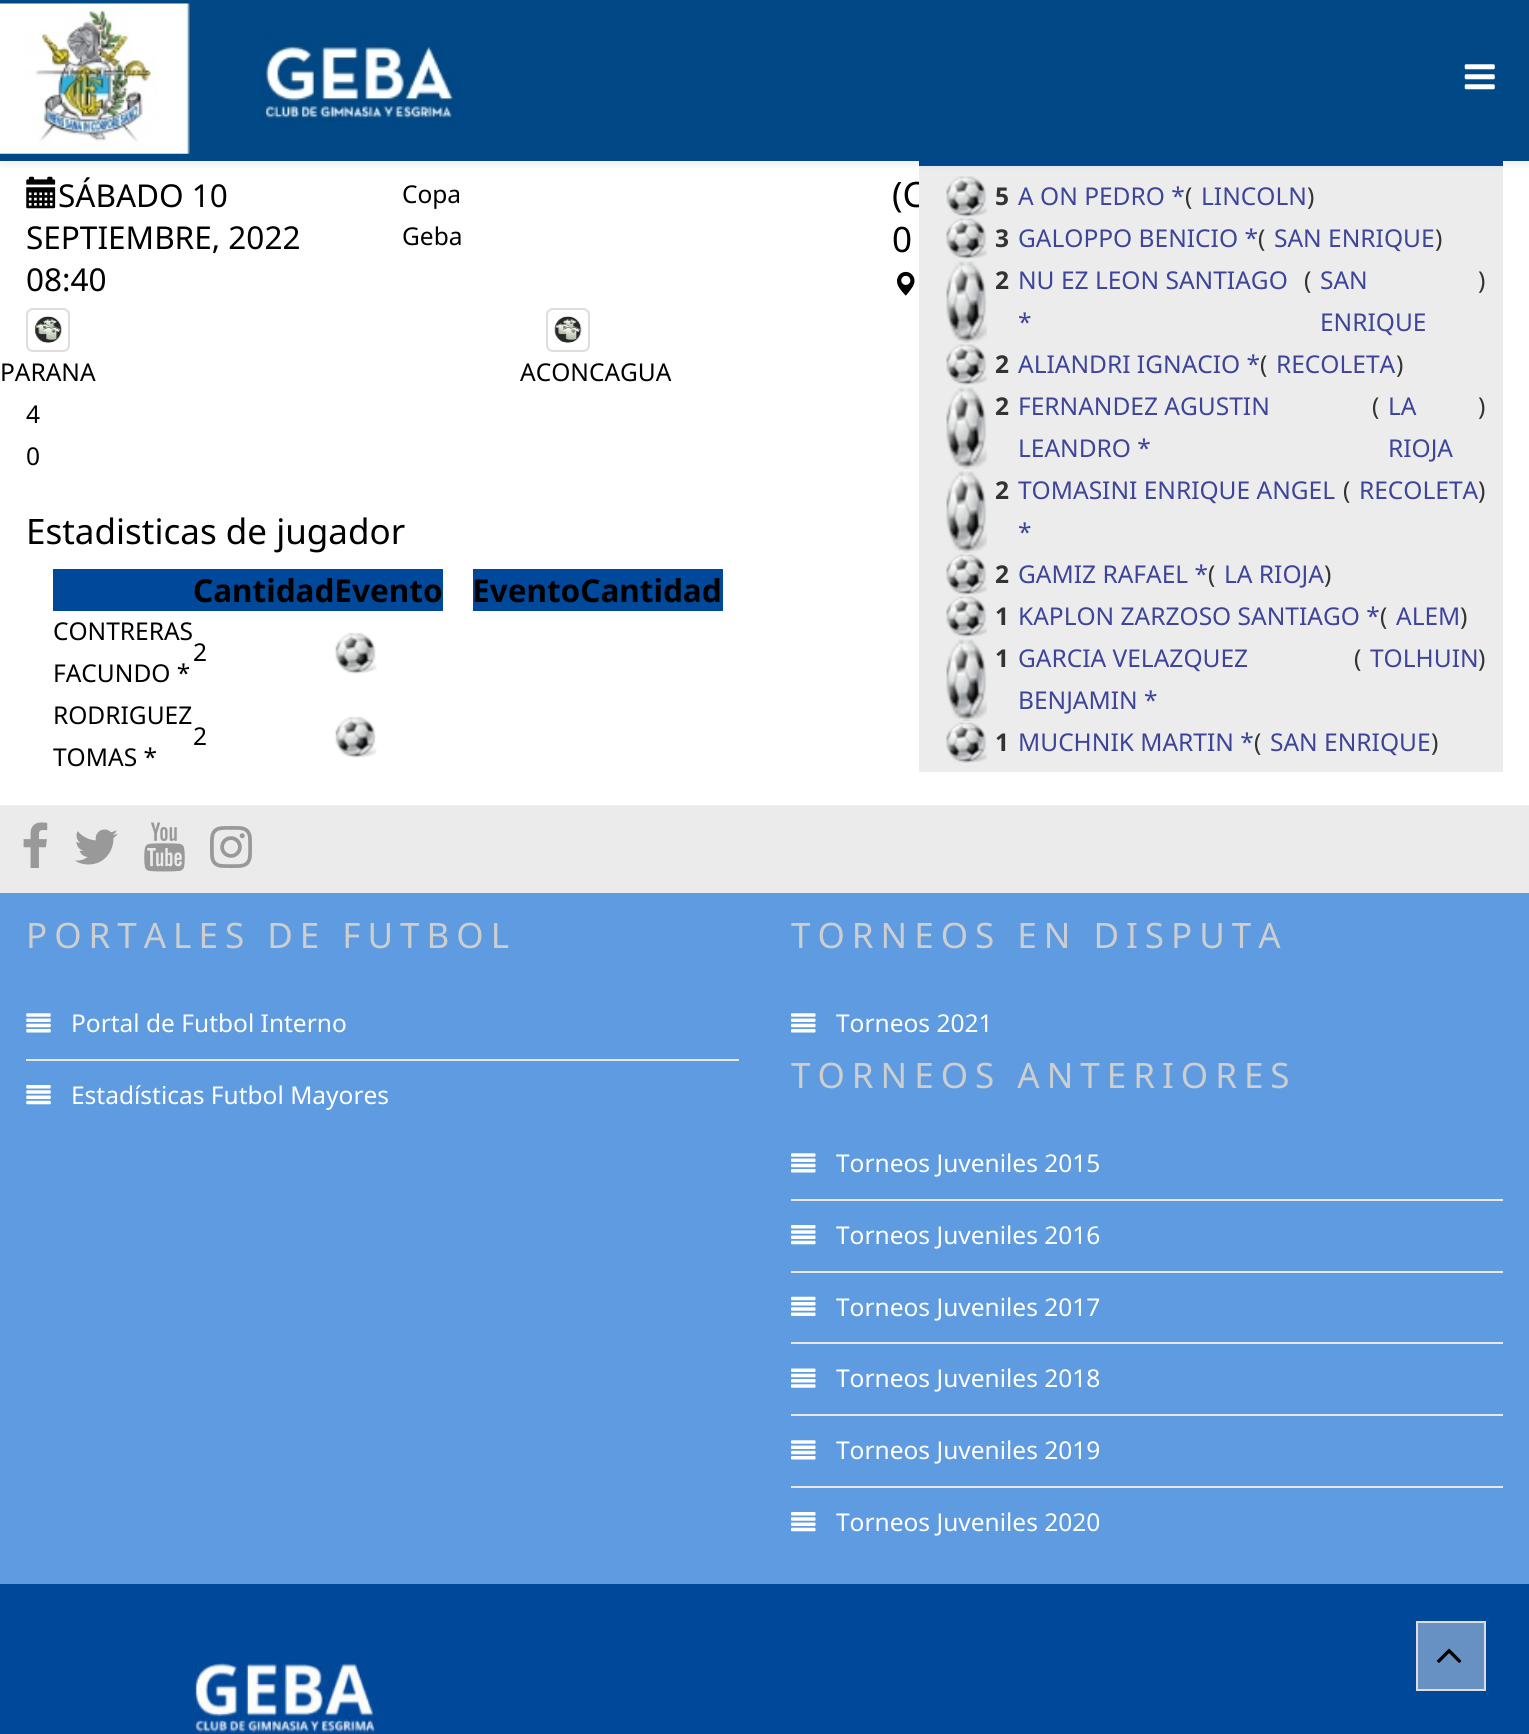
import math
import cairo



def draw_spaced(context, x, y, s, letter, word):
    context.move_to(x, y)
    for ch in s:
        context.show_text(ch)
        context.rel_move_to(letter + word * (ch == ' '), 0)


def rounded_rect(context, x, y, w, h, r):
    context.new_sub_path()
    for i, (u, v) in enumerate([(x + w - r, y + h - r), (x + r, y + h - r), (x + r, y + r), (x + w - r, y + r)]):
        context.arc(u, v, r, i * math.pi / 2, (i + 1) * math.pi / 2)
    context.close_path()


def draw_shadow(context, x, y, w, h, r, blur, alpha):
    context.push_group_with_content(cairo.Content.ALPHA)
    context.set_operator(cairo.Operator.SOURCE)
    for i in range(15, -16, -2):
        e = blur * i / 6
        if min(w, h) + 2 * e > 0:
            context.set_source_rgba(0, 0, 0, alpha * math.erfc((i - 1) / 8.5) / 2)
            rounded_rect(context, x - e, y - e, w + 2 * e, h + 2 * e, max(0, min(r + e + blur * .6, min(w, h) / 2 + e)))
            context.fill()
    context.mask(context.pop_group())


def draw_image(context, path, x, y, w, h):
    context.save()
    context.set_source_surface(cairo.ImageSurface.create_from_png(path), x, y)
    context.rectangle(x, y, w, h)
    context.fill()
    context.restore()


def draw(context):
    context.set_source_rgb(1, 1, 1)
    context.paint()
    draw_image(context, "images/3.png", 26, 176, 30, 33)
    draw_image(context, "images/4.png", 897, 271, 18, 25)
    rounded_rect(context, 27, 309, 42, 42, 6)
    context.set_source_rgb(221 / 255, 221 / 255, 221 / 255)
    context.stroke()
    draw_image(context, "images/5.png", 34, 316, 28, 27)
    rounded_rect(context, 547, 309, 42, 42, 6)
    context.stroke()
    draw_image(context, "images/6.png", 554, 316, 28, 27)
    context.set_source_rgb(0, 72 / 255, 154 / 255)
    context.rectangle(53, 569, 390, 42)
    context.fill()
    draw_image(context, "images/7.png", 335, 632, 42, 42)
    draw_image(context, "images/8.png", 335, 716, 42, 42)
    context.rectangle(473, 569, 250, 42)
    context.fill()
    context.set_source_rgb(0, 72 / 255, 153 / 255)
    context.rectangle(919, 161, 584, 5)
    context.fill()
    context.set_source_rgb(235 / 255, 235 / 255, 235 / 255)
    context.rectangle(0, 805, 1529, 88)
    context.fill()
    draw_image(context, "images/15.png", 23, 822, 25, 46)
    draw_image(context, "images/16.png", 75, 829, 43, 36)
    draw_image(context, "images/17.png", 144, 822, 41, 50)
    draw_image(context, "images/18.png", 210, 826, 42, 42)
    context.set_source_rgb(94 / 255, 155 / 255, 224 / 255)
    context.rectangle(0, 893, 1529, 691)
    context.fill()
    context.set_source_rgb(232 / 255, 232 / 255, 232 / 255)
    context.rectangle(26, 1059, 713, 2)
    context.fill()
    draw_image(context, "images/19.png", 26, 1013, 25, 20)
    draw_image(context, "images/20.png", 26, 1085, 25, 20)
    draw_image(context, "images/21.png", 791, 1013, 25, 20)
    context.rectangle(791, 1199, 712, 2)
    context.fill()
    draw_image(context, "images/21.png", 791, 1153, 25, 20)
    context.rectangle(791, 1271, 712, 2)
    context.fill()
    draw_image(context, "images/22.png", 791, 1225, 25, 20)
    context.rectangle(791, 1342, 712, 2)
    context.fill()
    draw_image(context, "images/23.png", 791, 1296, 25, 20)
    context.rectangle(791, 1414, 712, 2)
    context.fill()
    draw_image(context, "images/24.png", 791, 1368, 25, 20)
    context.rectangle(791, 1486, 712, 2)
    context.fill()
    draw_image(context, "images/21.png", 791, 1440, 25, 20)
    draw_image(context, "images/22.png", 791, 1512, 25, 20)
    context.set_source_rgb(0, 72 / 255, 153 / 255)
    context.rectangle(0, 1584, 1529, 150)
    context.fill()
    draw_image(context, "images/25.png", 192, 1662, 184, 72)
    context.set_source_rgb(102 / 255, 145 / 255, 194 / 255)
    context.rectangle(1417, 1622, 68, 68)
    context.fill_preserve()
    context.set_source_rgb(221 / 255, 221 / 255, 221 / 255)
    context.stroke()
    draw_image(context, "images/26.png", 1436, 1648, 26, 15)
    context.select_font_face("Noto Sans")
    context.set_font_size(31.5)
    context.set_source_rgb(0, 0, 0)
    context.move_to(58, 207)
    context.show_text("SÁBADO 10")
    context.move_to(26, 249)
    context.show_text("SEPTIEMBRE, 2022")
    context.move_to(26, 291)
    context.show_text("08:40")
    context.set_font_size(24.5)
    context.move_to(402, 203)
    context.show_text("Copa")
    context.move_to(402, 245)
    context.show_text("Geba")
    context.set_font_size(35)
    context.move_to(892, 207)
    context.show_text("(C")
    context.move_to(892, 252)
    context.show_text("0")
    context.set_font_size(24.5)
    context.move_to(0, 381)
    context.show_text("PARANA")
    context.move_to(520, 381)
    context.show_text("ACONCAGUA")
    context.move_to(26, 423)
    context.show_text("4")
    context.move_to(26, 465)
    context.show_text("0")
    context.set_font_size(35)
    context.move_to(26, 544)
    context.show_text("Estadisticas de jugador")
    context.select_font_face("Noto Sans", cairo.FontSlant.NORMAL, cairo.FontWeight.BOLD)
    context.set_font_size(31.5)
    context.move_to(193, 602)
    context.show_text("CantidadEvento")
    context.select_font_face("Noto Sans")
    context.set_font_size(24.5)
    context.move_to(53, 640)
    context.show_text("CONTRERAS")
    context.move_to(53, 682)
    context.show_text("FACUNDO *")
    context.move_to(193, 661)
    context.show_text("2")
    context.move_to(53, 724)
    context.show_text("RODRIGUEZ")
    context.move_to(53, 766)
    context.show_text("TOMAS *")
    context.move_to(193, 745)
    context.show_text("2")
    context.select_font_face("Noto Sans", cairo.FontSlant.NORMAL, cairo.FontWeight.BOLD)
    context.set_font_size(31.5)
    context.move_to(472, 602)
    context.show_text("EventoCantidad")
    context.set_source_rgb(236 / 255, 236 / 255, 236 / 255)
    context.rectangle(919, 166, 584, 606)
    context.fill()
    context.set_source_rgb(0, 0, 0)
    draw_shadow(context, 0, 5, 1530, 161, 0, 2.5, 0.05)
    context.set_source_rgb(1 / 255, 72 / 255, 134 / 255)
    context.rectangle(0, 0, 1529, 161)
    context.fill()
    draw_image(context, "images/1.png", 0, 3, 464, 151)
    draw_image(context, "images/2.png", 1464, 64, 31, 26)
    draw_image(context, "images/9.png", 946, 176, 41, 41)
    context.set_font_size(24.5)
    context.set_source_rgb(51 / 255, 51 / 255, 51 / 255)
    context.move_to(995, 205)
    context.show_text("5")
    context.select_font_face("Noto Sans")
    context.set_source_rgb(61 / 255, 68 / 255, 154 / 255)
    context.move_to(1018, 205)
    context.show_text("A ON PEDRO *")
    context.set_source_rgb(51 / 255, 51 / 255, 51 / 255)
    context.move_to(1185, 205)
    context.show_text("(")
    context.set_source_rgb(61 / 255, 68 / 255, 154 / 255)
    context.move_to(1201, 205)
    context.show_text("LINCOLN")
    context.set_source_rgb(51 / 255, 51 / 255, 51 / 255)
    context.move_to(1307, 205)
    context.show_text(")")
    draw_image(context, "images/9.png", 946, 218, 41, 41)
    context.select_font_face("Noto Sans", cairo.FontSlant.NORMAL, cairo.FontWeight.BOLD)
    context.move_to(995, 247)
    context.show_text("3")
    context.select_font_face("Noto Sans")
    context.set_source_rgb(61 / 255, 68 / 255, 154 / 255)
    context.move_to(1018, 247)
    context.show_text("GALOPPO BENICIO *")
    context.set_source_rgb(51 / 255, 51 / 255, 51 / 255)
    context.move_to(1258, 247)
    context.show_text("(")
    context.set_source_rgb(61 / 255, 68 / 255, 154 / 255)
    context.move_to(1274, 247)
    context.show_text("SAN ENRIQUE")
    context.set_source_rgb(51 / 255, 51 / 255, 51 / 255)
    context.move_to(1435, 247)
    context.show_text(")")
    draw_image(context, "images/10.png", 946, 261, 41, 82)
    context.select_font_face("Noto Sans", cairo.FontSlant.NORMAL, cairo.FontWeight.BOLD)
    context.move_to(995, 289)
    context.show_text("2")
    context.select_font_face("Noto Sans")
    context.set_source_rgb(61 / 255, 68 / 255, 154 / 255)
    context.move_to(1018, 289)
    context.show_text("NU EZ LEON SANTIAGO")
    context.move_to(1018, 331)
    context.show_text("*")
    context.set_source_rgb(51 / 255, 51 / 255, 51 / 255)
    context.move_to(1304, 289)
    context.show_text("(")
    context.set_source_rgb(61 / 255, 68 / 255, 154 / 255)
    context.move_to(1320, 289)
    context.show_text("SAN")
    context.move_to(1320, 331)
    context.show_text("ENRIQUE")
    context.set_source_rgb(51 / 255, 51 / 255, 51 / 255)
    context.move_to(1478, 289)
    context.show_text(")")
    draw_image(context, "images/9.png", 946, 344, 41, 41)
    context.select_font_face("Noto Sans", cairo.FontSlant.NORMAL, cairo.FontWeight.BOLD)
    context.move_to(995, 373)
    context.show_text("2")
    context.select_font_face("Noto Sans")
    context.set_source_rgb(61 / 255, 68 / 255, 154 / 255)
    context.move_to(1018, 373)
    context.show_text("ALIANDRI IGNACIO *")
    context.set_source_rgb(51 / 255, 51 / 255, 51 / 255)
    context.move_to(1260, 373)
    context.show_text("(")
    context.set_source_rgb(61 / 255, 68 / 255, 154 / 255)
    context.move_to(1276, 373)
    context.show_text("RECOLETA")
    context.set_source_rgb(51 / 255, 51 / 255, 51 / 255)
    context.move_to(1396, 373)
    context.show_text(")")
    draw_image(context, "images/11.png", 946, 387, 41, 82)
    context.select_font_face("Noto Sans", cairo.FontSlant.NORMAL, cairo.FontWeight.BOLD)
    context.move_to(995, 415)
    context.show_text("2")
    context.select_font_face("Noto Sans")
    context.set_source_rgb(61 / 255, 68 / 255, 154 / 255)
    context.move_to(1018, 415)
    context.show_text("FERNANDEZ AGUSTIN")
    context.move_to(1018, 457)
    context.show_text("LEANDRO *")
    context.set_source_rgb(51 / 255, 51 / 255, 51 / 255)
    context.move_to(1372, 415)
    context.show_text("(")
    context.set_source_rgb(61 / 255, 68 / 255, 154 / 255)
    context.move_to(1388, 415)
    context.show_text("LA")
    context.move_to(1388, 457)
    context.show_text("RIOJA")
    context.set_source_rgb(51 / 255, 51 / 255, 51 / 255)
    context.move_to(1478, 415)
    context.show_text(")")
    draw_image(context, "images/12.png", 946, 471, 41, 82)
    context.select_font_face("Noto Sans", cairo.FontSlant.NORMAL, cairo.FontWeight.BOLD)
    context.move_to(995, 499)
    context.show_text("2")
    context.select_font_face("Noto Sans")
    context.set_source_rgb(61 / 255, 68 / 255, 154 / 255)
    context.move_to(1018, 499)
    context.show_text("TOMASINI ENRIQUE ANGEL")
    context.move_to(1018, 541)
    context.show_text("*")
    context.set_source_rgb(51 / 255, 51 / 255, 51 / 255)
    context.move_to(1343, 499)
    context.show_text("(")
    context.set_source_rgb(61 / 255, 68 / 255, 154 / 255)
    context.move_to(1359, 499)
    context.show_text("RECOLETA")
    context.set_source_rgb(51 / 255, 51 / 255, 51 / 255)
    context.move_to(1478, 499)
    context.show_text(")")
    draw_image(context, "images/9.png", 946, 554, 41, 41)
    context.select_font_face("Noto Sans", cairo.FontSlant.NORMAL, cairo.FontWeight.BOLD)
    context.move_to(995, 583)
    context.show_text("2")
    context.select_font_face("Noto Sans")
    context.set_source_rgb(61 / 255, 68 / 255, 154 / 255)
    context.move_to(1018, 583)
    context.show_text("GAMIZ RAFAEL *")
    context.set_source_rgb(51 / 255, 51 / 255, 51 / 255)
    context.move_to(1208, 583)
    context.show_text("(")
    context.set_source_rgb(61 / 255, 68 / 255, 154 / 255)
    context.move_to(1224, 583)
    context.show_text("LA RIOJA")
    context.set_source_rgb(51 / 255, 51 / 255, 51 / 255)
    context.move_to(1324, 583)
    context.show_text(")")
    draw_image(context, "images/9.png", 946, 596, 41, 41)
    context.select_font_face("Noto Sans", cairo.FontSlant.NORMAL, cairo.FontWeight.BOLD)
    context.move_to(995, 625)
    context.show_text("1")
    context.select_font_face("Noto Sans")
    context.set_source_rgb(61 / 255, 68 / 255, 154 / 255)
    context.move_to(1018, 625)
    context.show_text("KAPLON ZARZOSO SANTIAGO *")
    context.set_source_rgb(51 / 255, 51 / 255, 51 / 255)
    context.move_to(1380, 625)
    context.show_text("(")
    context.set_source_rgb(61 / 255, 68 / 255, 154 / 255)
    context.move_to(1396, 625)
    context.show_text("ALEM")
    context.set_source_rgb(51 / 255, 51 / 255, 51 / 255)
    context.move_to(1460, 625)
    context.show_text(")")
    draw_image(context, "images/13.png", 946, 639, 41, 82)
    context.select_font_face("Noto Sans", cairo.FontSlant.NORMAL, cairo.FontWeight.BOLD)
    context.move_to(995, 667)
    context.show_text("1")
    context.select_font_face("Noto Sans")
    context.set_source_rgb(61 / 255, 68 / 255, 154 / 255)
    context.move_to(1018, 667)
    context.show_text("GARCIA VELAZQUEZ")
    context.move_to(1018, 709)
    context.show_text("BENJAMIN *")
    context.set_source_rgb(51 / 255, 51 / 255, 51 / 255)
    context.move_to(1354, 667)
    context.show_text("(")
    context.set_source_rgb(61 / 255, 68 / 255, 154 / 255)
    context.move_to(1370, 667)
    context.show_text("TOLHUIN")
    context.set_source_rgb(51 / 255, 51 / 255, 51 / 255)
    context.move_to(1478, 667)
    context.show_text(")")
    draw_image(context, "images/14.png", 946, 722, 41, 41)
    context.select_font_face("Noto Sans", cairo.FontSlant.NORMAL, cairo.FontWeight.BOLD)
    context.move_to(995, 751)
    context.show_text("1")
    context.select_font_face("Noto Sans")
    context.set_source_rgb(61 / 255, 68 / 255, 154 / 255)
    context.move_to(1018, 751)
    context.show_text("MUCHNIK MARTIN *")
    context.set_source_rgb(51 / 255, 51 / 255, 51 / 255)
    context.move_to(1254, 751)
    context.show_text("(")
    context.set_source_rgb(61 / 255, 68 / 255, 154 / 255)
    context.move_to(1270, 751)
    context.show_text("SAN ENRIQUE")
    context.set_source_rgb(51 / 255, 51 / 255, 51 / 255)
    context.move_to(1431, 751)
    context.show_text(")")
    context.set_font_size(35)
    context.set_source_rgb(206 / 255, 206 / 255, 206 / 255)
    draw_spaced(context, 26, 948, "PORTALES DE FUTBOL", 7, 0)
    context.set_font_size(24.5)
    context.set_source_rgb(1, 1, 1)
    context.move_to(71, 1032)
    context.show_text("Portal de Futbol Interno")
    context.move_to(71, 1104)
    context.show_text("Estadísticas Futbol Mayores")
    context.set_font_size(35)
    context.set_source_rgb(206 / 255, 206 / 255, 206 / 255)
    draw_spaced(context, 791, 948, "TORNEOS EN DISPUTA", 7, 0)
    context.set_font_size(24.5)
    context.set_source_rgb(1, 1, 1)
    context.move_to(836, 1032)
    context.show_text("Torneos 2021")
    context.set_font_size(35)
    context.set_source_rgb(206 / 255, 206 / 255, 206 / 255)
    draw_spaced(context, 791, 1088, "TORNEOS ANTERIORES", 7, 0)
    context.set_font_size(24.5)
    context.set_source_rgb(1, 1, 1)
    context.move_to(836, 1172)
    context.show_text("Torneos Juveniles 2015")
    context.move_to(836, 1244)
    context.show_text("Torneos Juveniles 2016")
    context.move_to(836, 1316)
    context.show_text("Torneos Juveniles 2017")
    context.move_to(836, 1387)
    context.show_text("Torneos Juveniles 2018")
    context.move_to(836, 1459)
    context.show_text("Torneos Juveniles 2019")
    context.move_to(836, 1531)
    context.show_text("Torneos Juveniles 2020")


surface = cairo.ImageSurface(cairo.Format.RGB24, 1529, 1734)
context = cairo.Context(surface)
options = cairo.FontOptions()
options.set_hint_metrics(cairo.HintMetrics.OFF)
options.set_hint_style(cairo.HintStyle.NONE)
context.set_font_options(options)
context.set_miter_limit(4)
draw(context)
surface.write_to_png("out.png")
